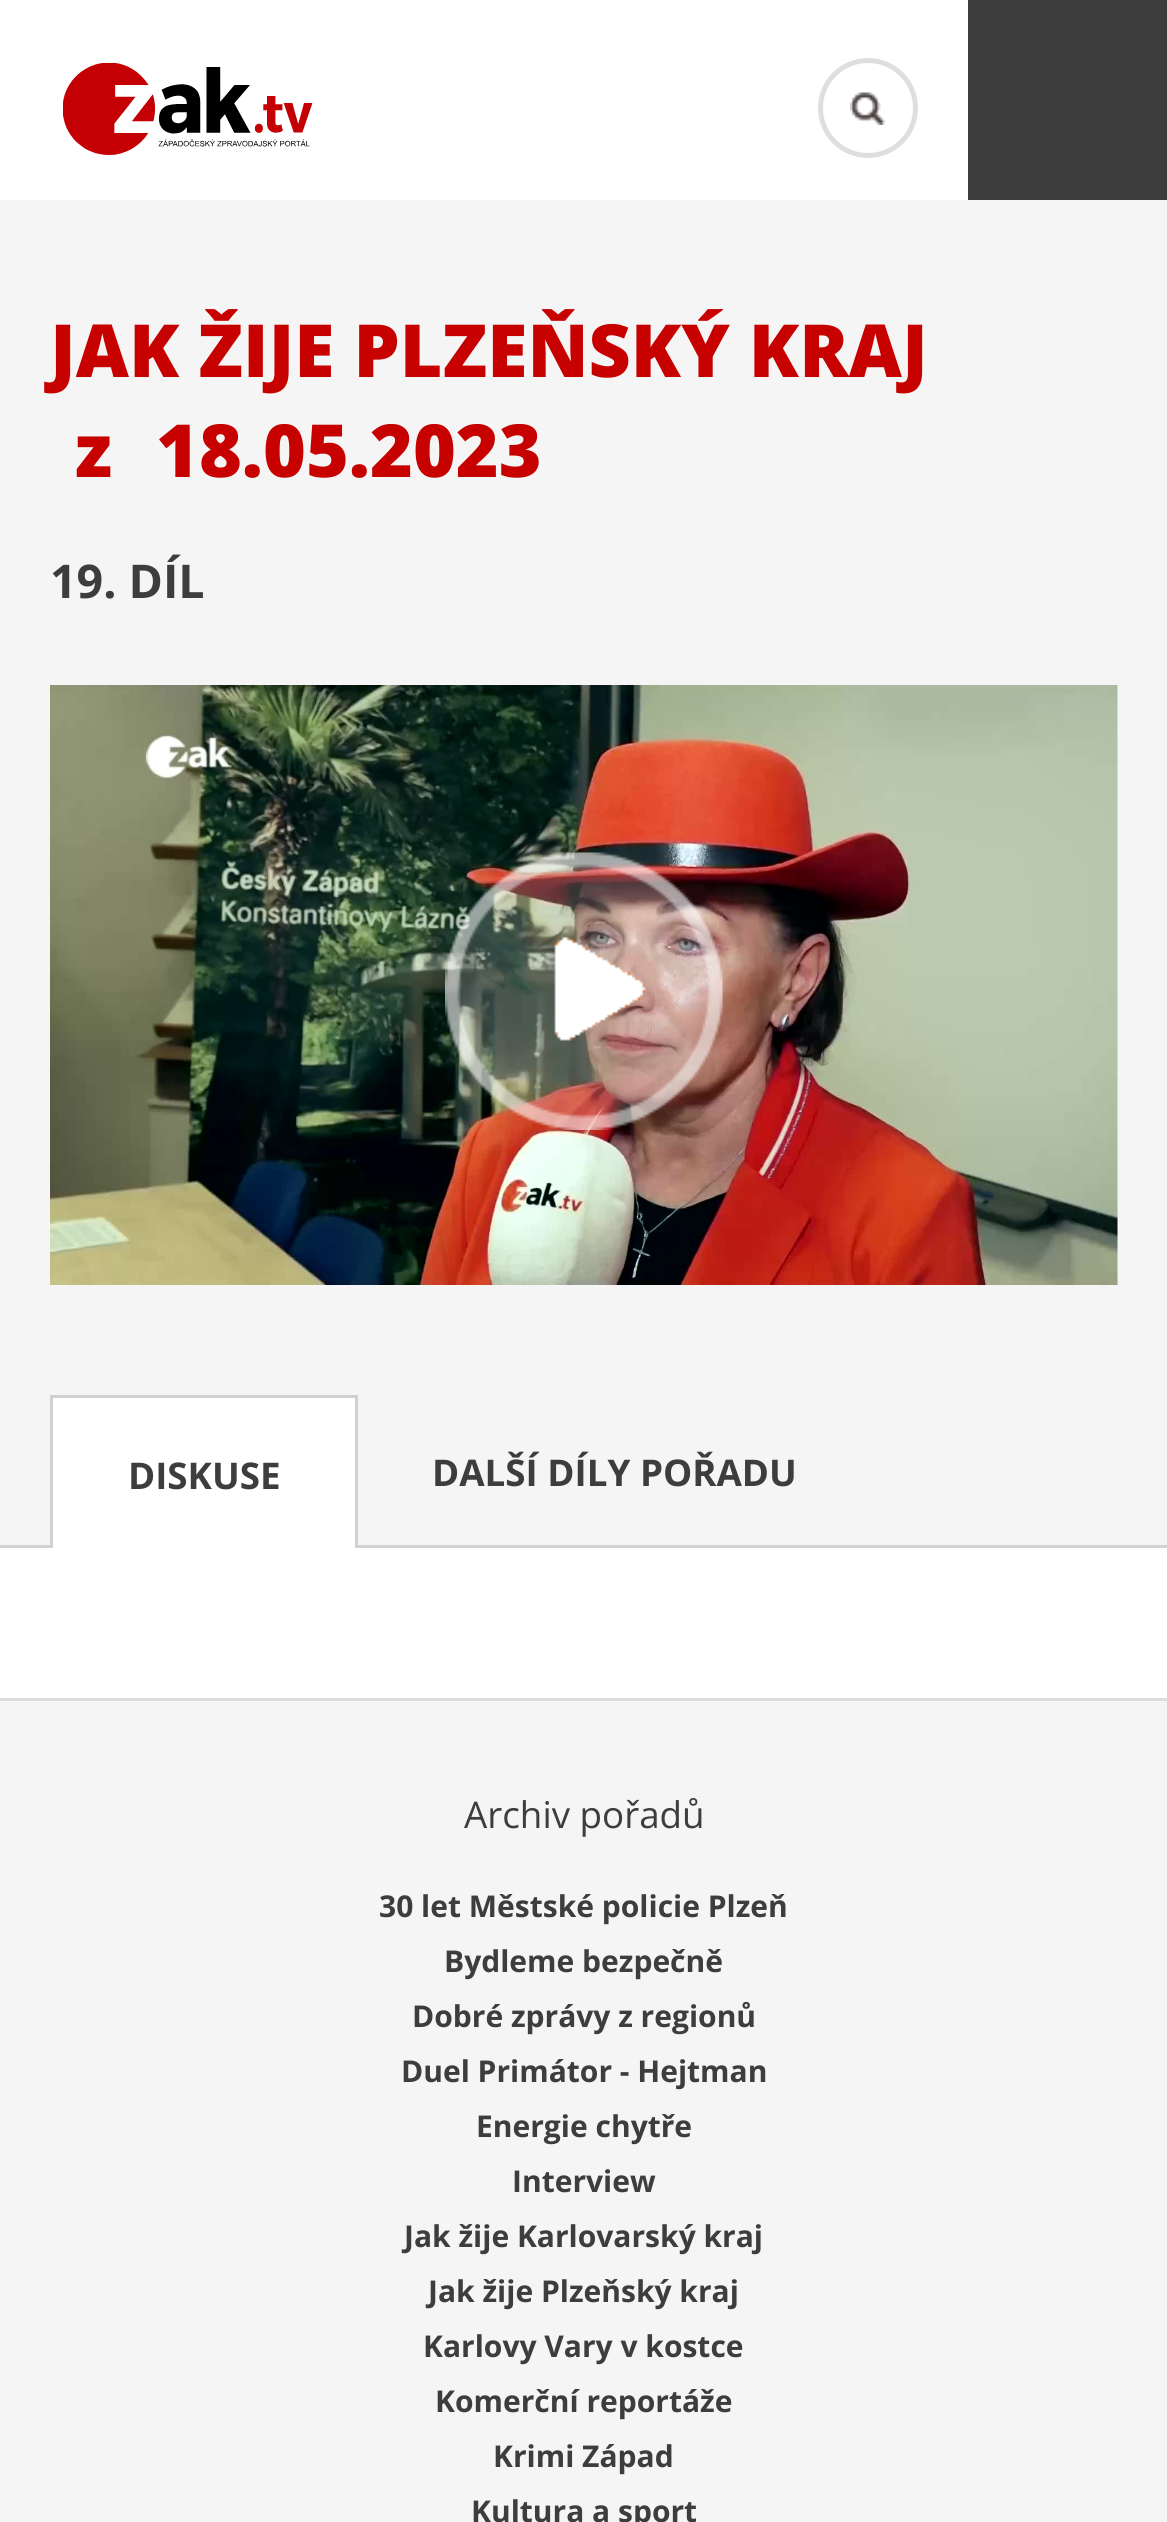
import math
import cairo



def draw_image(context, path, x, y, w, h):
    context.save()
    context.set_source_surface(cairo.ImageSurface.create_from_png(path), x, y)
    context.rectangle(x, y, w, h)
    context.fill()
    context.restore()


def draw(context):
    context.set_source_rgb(1, 1, 1)
    context.paint()
    draw_image(context, "images/1.png", 63, 63, 250, 92)
    draw_image(context, "images/2.png", 850, 92, 35, 33)
    context.arc(868, 108, 47.5, 0, 2 * math.pi)
    context.set_source_rgb(222 / 255, 222 / 255, 222 / 255)
    context.set_line_width(5)
    context.stroke()
    context.set_source_rgb(61 / 255, 61 / 255, 61 / 255)
    context.rectangle(968, 0, 199, 200)
    context.fill()
    context.set_source_rgb(245 / 255, 245 / 255, 245 / 255)
    context.rectangle(0, 200, 1167, 2322)
    context.fill()
    draw_image(context, "images/3.png", 50, 685, 1068, 600)
    draw_image(context, "images/4.png", 445, 852, 278, 278)
    context.set_source_rgb(209 / 255, 209 / 255, 209 / 255)
    context.rectangle(0, 1545, 1167, 3)
    context.fill()
    context.set_source_rgb(1, 1, 1)
    context.rectangle(53, 1398, 302, 150)
    context.fill()
    context.set_source_rgb(209 / 255, 209 / 255, 209 / 255)
    context.rectangle(50, 1395, 308, 3)
    context.fill()
    context.rectangle(355, 1395, 3, 153)
    context.fill()
    context.rectangle(50, 1395, 3, 153)
    context.fill()
    context.set_source_rgb(1, 1, 1)
    context.rectangle(0, 1548, 1167, 150)
    context.fill()
    context.set_source_rgb(220 / 255, 220 / 255, 220 / 255)
    context.rectangle(0, 1698, 1167, 3)
    context.fill()
    context.select_font_face("Open Sans ExtraBold")
    context.set_font_size(73.25)
    context.set_source_rgb(199 / 255, 0, 0)
    context.move_to(50, 377)
    context.show_text("JAK ŽIJE PLZEŇSKÝ KRAJ")
    context.move_to(75, 477)
    context.show_text("z")
    context.move_to(156, 477)
    context.show_text("18.05.2023")
    context.select_font_face("Open Sans", cairo.FontSlant.NORMAL, cairo.FontWeight.BOLD)
    context.set_font_size(46.5)
    context.set_source_rgb(61 / 255, 61 / 255, 61 / 255)
    context.move_to(50, 598)
    context.show_text("19. DÍL")
    context.set_font_size(36.75)
    context.move_to(128, 1489)
    context.show_text("DISKUSE")
    context.move_to(432, 1486)
    context.show_text("DALŠÍ DÍLY POŘADU")
    context.select_font_face("Open Sans")
    context.move_to(464, 1828)
    context.show_text("Archiv pořadů")
    context.select_font_face("Open Sans", cairo.FontSlant.NORMAL, cairo.FontWeight.BOLD)
    context.set_font_size(30)
    context.move_to(379, 1917)
    context.show_text("30 let Městské policie Plzeň")
    context.move_to(444, 1972)
    context.show_text("Bydleme bezpečně")
    context.move_to(412, 2027)
    context.show_text("Dobré zprávy z regionů")
    context.move_to(401, 2082)
    context.show_text("Duel Primátor - Hejtman")
    context.move_to(476, 2137)
    context.show_text("Energie chytře")
    context.move_to(512, 2192)
    context.show_text("Interview")
    context.move_to(404, 2247)
    context.show_text("Jak žije Karlovarský kraj")
    context.move_to(428, 2302)
    context.show_text("Jak žije Plzeňský kraj")
    context.move_to(423, 2357)
    context.show_text("Karlovy Vary v kostce")
    context.move_to(435, 2412)
    context.show_text("Komerční reportáže")
    context.move_to(493, 2467)
    context.show_text("Krimi Západ")
    context.move_to(471, 2522)
    context.show_text("Kultura a sport")


surface = cairo.ImageSurface(cairo.Format.RGB24, 1167, 2522)
context = cairo.Context(surface)
options = cairo.FontOptions()
options.set_hint_metrics(cairo.HintMetrics.OFF)
options.set_hint_style(cairo.HintStyle.NONE)
context.set_font_options(options)
context.set_miter_limit(4)
draw(context)
surface.write_to_png("out.png")
